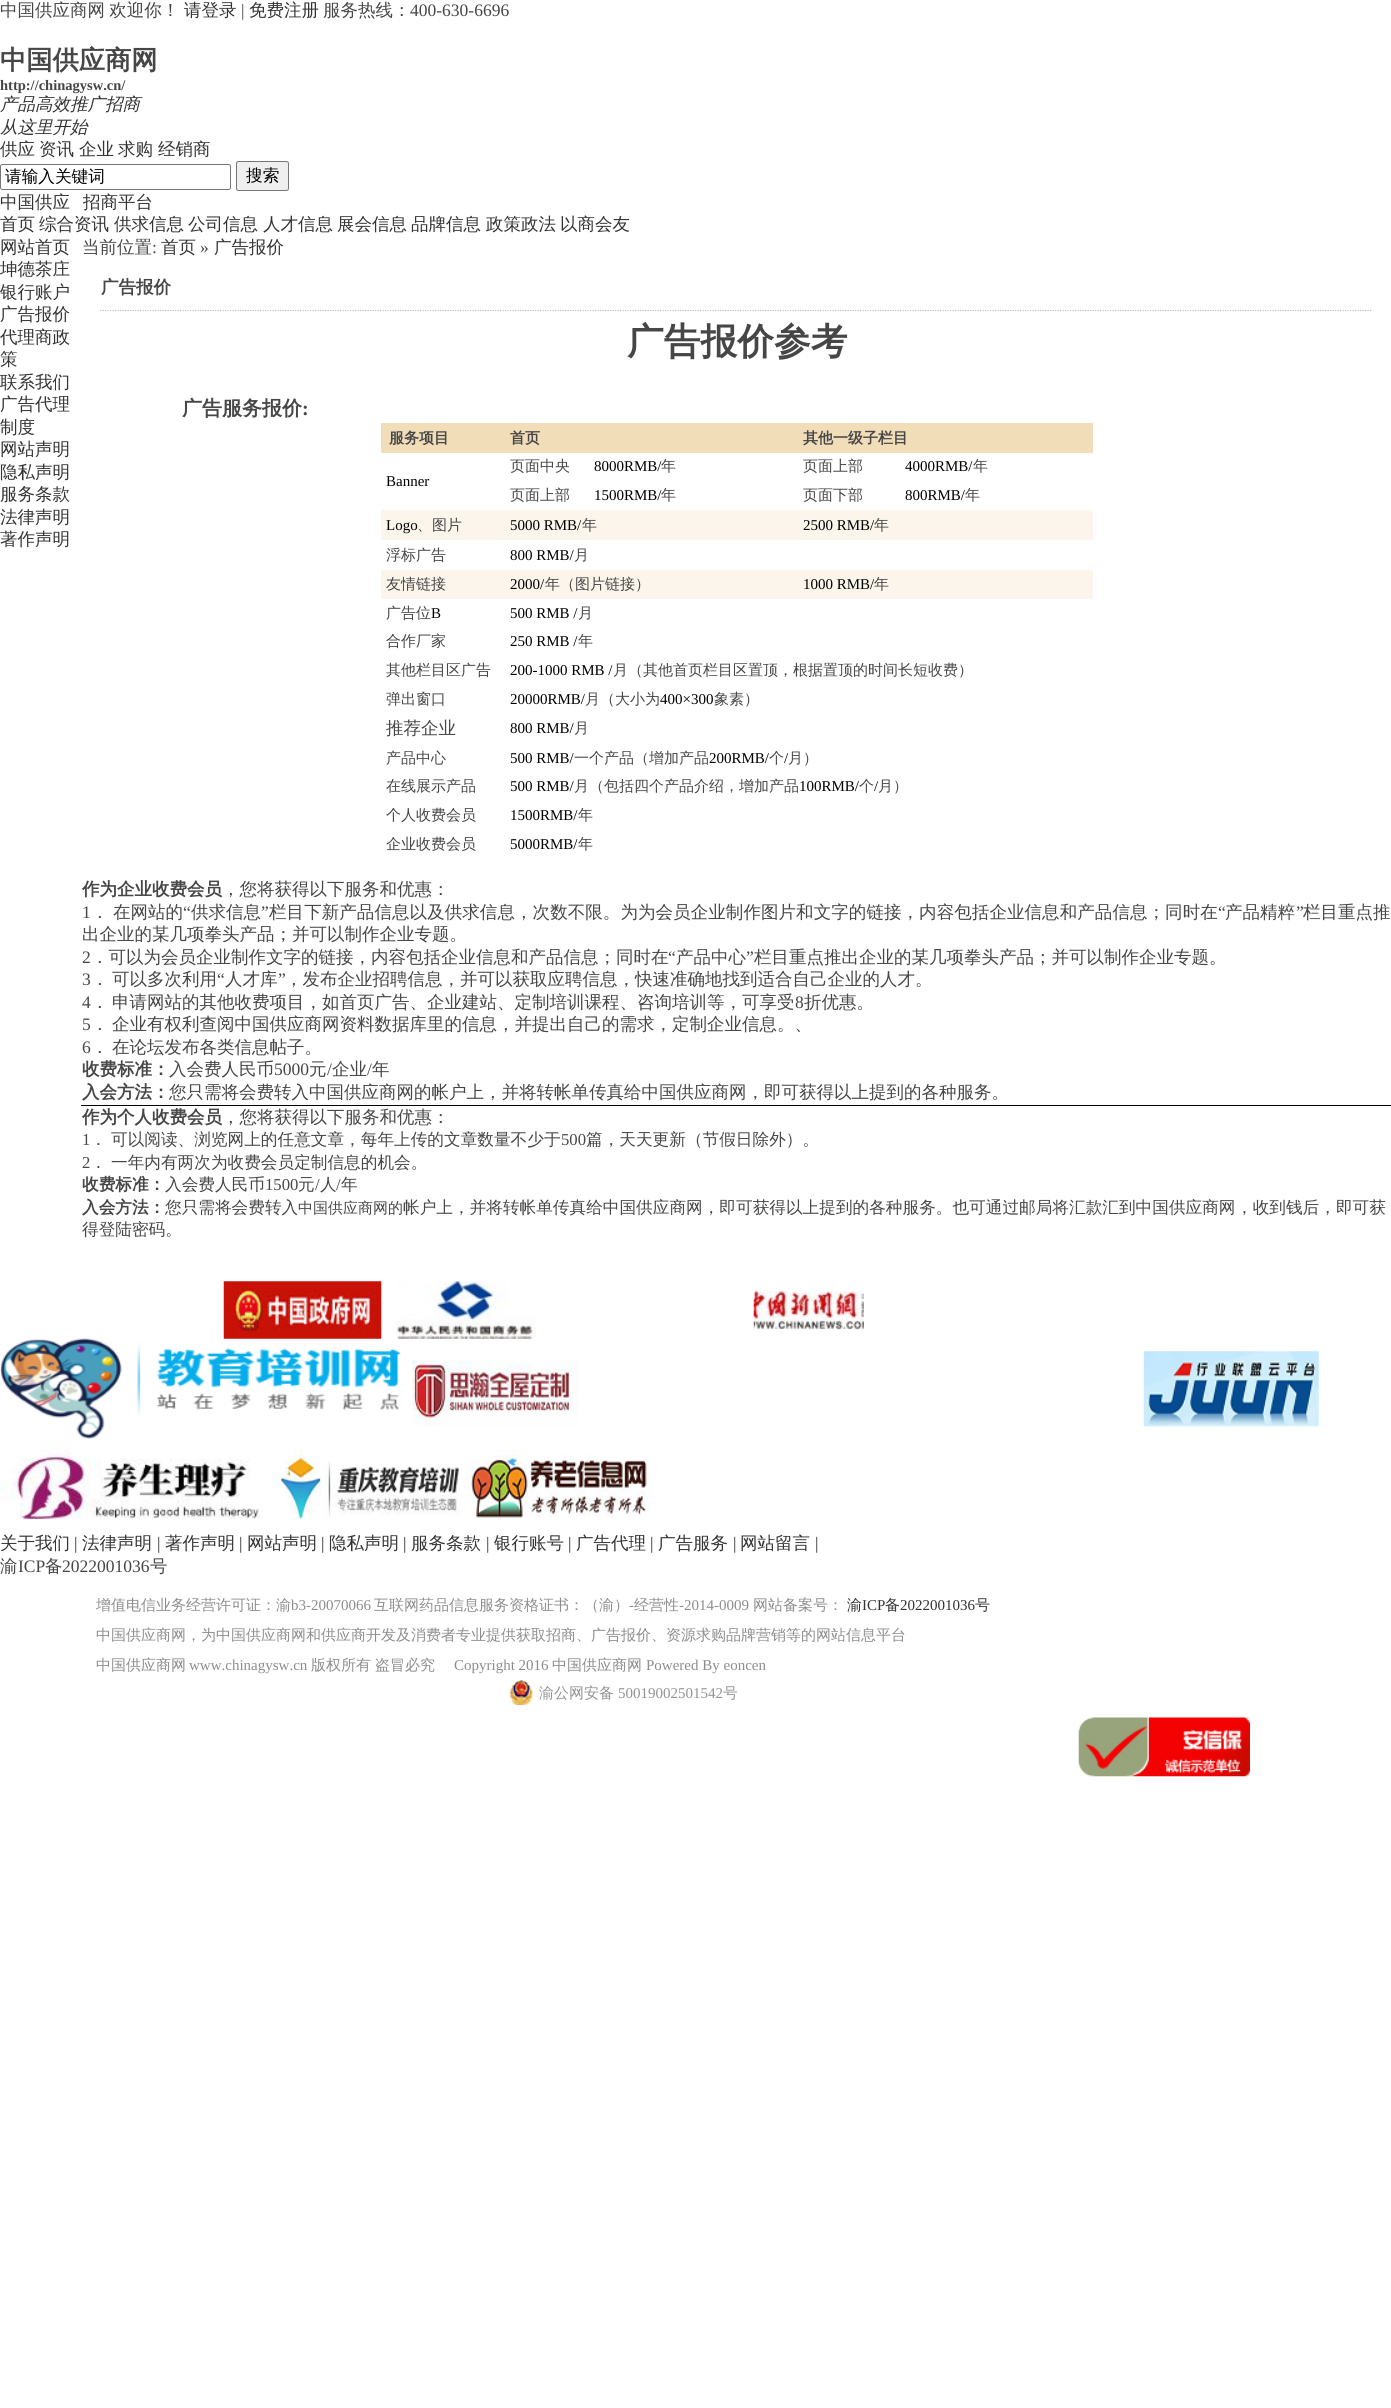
import math
import cairo



def draw_spaced(context, x, y, s, letter, word):
    context.move_to(x, y)
    for ch in s:
        context.show_text(ch)
        context.rel_move_to(letter + word * (ch == ' '), 0)


def rounded_rect(context, x, y, w, h, r):
    context.new_sub_path()
    for i, (u, v) in enumerate([(x + w - r, y + h - r), (x + r, y + h - r), (x + r, y + r), (x + w - r, y + r)]):
        context.arc(u, v, r, i * math.pi / 2, (i + 1) * math.pi / 2)
    context.close_path()


def draw_image(context, path, x, y, w, h):
    context.save()
    context.set_source_surface(cairo.ImageSurface.create_from_png(path), x, y)
    context.rectangle(x, y, w, h)
    context.fill()
    context.restore()


def draw(context):
    context.set_source_rgb(1, 1, 1)
    context.paint()
    rounded_rect(context, 0.5, 164.5, 230, 25, 2)
    context.set_source_rgb(118 / 255, 118 / 255, 118 / 255)
    context.set_line_width(1)
    context.stroke()
    context.set_source_rgb(239 / 255, 239 / 255, 239 / 255)
    rounded_rect(context, 236.5, 161.5, 52, 29, 2)
    context.fill_preserve()
    context.set_source_rgb(118 / 255, 118 / 255, 118 / 255)
    context.stroke()
    context.new_path()
    context.move_to(100, 310.5)
    context.line_to(1372.5, 310.5)
    context.set_source_rgb(192 / 255, 192 / 255, 192 / 255)
    context.set_line_width(1.2)
    context.set_dash([1.25, 1.25])
    context.stroke()
    context.set_source_rgb(242 / 255, 221 / 255, 185 / 255)
    context.rectangle(381, 423, 712, 30)
    context.fill()
    context.set_source_rgb(252 / 255, 245 / 255, 235 / 255)
    context.rectangle(381, 510, 712, 30)
    context.fill()
    context.rectangle(381, 570, 712, 29)
    context.fill()
    context.set_source_rgb(0, 0, 0)
    context.rectangle(81, 1105, 1310, 1)
    context.fill()
    draw_image(context, "images/1.png", 223, 1281, 159, 58)
    draw_image(context, "images/2.png", 396, 1281, 140, 58)
    draw_image(context, "images/3.png", 753, 1291, 111, 39)
    draw_image(context, "images/4.png", 0, 1338, 400, 101)
    draw_image(context, "images/5.png", 412, 1360, 167, 67)
    draw_image(context, "images/6.png", 1143, 1351, 176, 76)
    draw_image(context, "images/7.png", 0, 1438, 260, 82)
    draw_image(context, "images/8.png", 276, 1448, 183, 72)
    draw_image(context, "images/9.png", 468, 1449, 182, 70)
    draw_image(context, "images/10.png", 509, 1680, 24, 25)
    draw_image(context, "images/11.png", 1078, 1717, 172, 60)
    context.select_font_face("WenQuanYi Zen Hei Medium")
    context.set_font_size(17.5)
    context.set_source_rgb(70 / 255, 70 / 255, 70 / 255)
    draw_spaced(context, 0, 16, "中国供应商网 欢迎你！", 0, -1)
    context.set_source_rgb(51 / 255, 51 / 255, 51 / 255)
    context.move_to(184, 16)
    context.show_text("请登录")
    context.select_font_face("Liberation Serif")
    context.set_source_rgb(70 / 255, 70 / 255, 70 / 255)
    context.move_to(241, 16)
    context.show_text("|")
    context.select_font_face("WenQuanYi Zen Hei Medium")
    context.set_source_rgb(51 / 255, 51 / 255, 51 / 255)
    context.move_to(249, 16)
    context.show_text("免费注册")
    context.set_source_rgb(70 / 255, 70 / 255, 70 / 255)
    context.move_to(323, 16)
    context.show_text("服务热线：")
    context.select_font_face("Liberation Serif")
    context.move_to(410, 16)
    context.show_text("400-630-6696")
    context.select_font_face("WenQuanYi Zen Hei", cairo.FontSlant.NORMAL, cairo.FontWeight.BOLD)
    context.set_font_size(26.25)
    context.move_to(0, 69)
    context.show_text("中国供应商网")
    context.select_font_face("Liberation Serif", cairo.FontSlant.NORMAL, cairo.FontWeight.BOLD)
    context.set_font_size(14.5)
    context.move_to(0, 90)
    context.show_text("http://chinagysw.cn/")
    context.select_font_face("WenQuanYi Zen Hei Medium", cairo.FontSlant.ITALIC)
    context.set_font_size(17.5)
    context.set_source_rgb(51 / 255, 51 / 255, 51 / 255)
    context.move_to(0, 110)
    context.show_text("产品高效推广招商")
    context.move_to(0, 133)
    context.show_text("从这里开始")
    context.select_font_face("WenQuanYi Zen Hei Medium")
    context.move_to(0, 155)
    context.show_text("供应")
    context.move_to(39, 155)
    context.show_text("资讯")
    context.move_to(79, 155)
    context.show_text("企业")
    context.move_to(118, 155)
    context.show_text("求购")
    context.move_to(158, 155)
    context.show_text("经销商")
    context.set_font_size(16.65)
    context.set_source_rgb(0, 0, 0)
    context.move_to(5, 182)
    context.show_text("请输入关键词")
    context.move_to(246, 181)
    context.show_text("搜索")
    context.set_font_size(17.5)
    context.set_source_rgb(51 / 255, 51 / 255, 51 / 255)
    context.move_to(0, 208)
    context.show_text("中国供应")
    context.move_to(83, 208)
    context.show_text("招商平台")
    context.move_to(0, 230)
    context.show_text("首页")
    context.move_to(39, 230)
    context.show_text("综合资讯")
    context.move_to(114, 230)
    context.show_text("供求信息")
    context.move_to(188, 230)
    context.show_text("公司信息")
    context.move_to(263, 230)
    context.show_text("人才信息")
    context.move_to(337, 230)
    context.show_text("展会信息")
    context.move_to(411, 230)
    context.show_text("品牌信息")
    context.move_to(486, 230)
    context.show_text("政策政法")
    context.move_to(560, 230)
    context.show_text("以商会友")
    context.move_to(0, 253)
    context.show_text("网站首页")
    context.move_to(0, 275)
    context.show_text("坤德茶庄")
    context.move_to(0, 298)
    context.show_text("银行账户")
    context.move_to(0, 320)
    context.show_text("广告报价")
    context.move_to(0, 343)
    context.show_text("代理商政")
    context.move_to(0, 365)
    context.show_text("策")
    context.move_to(0, 388)
    context.show_text("联系我们")
    context.move_to(0, 410)
    context.show_text("广告代理")
    context.move_to(0, 433)
    context.show_text("制度")
    context.move_to(0, 455)
    context.show_text("网站声明")
    context.move_to(0, 478)
    context.show_text("隐私声明")
    context.move_to(0, 500)
    context.show_text("服务条款")
    context.move_to(0, 523)
    context.show_text("法律声明")
    context.move_to(0, 545)
    context.show_text("著作声明")
    context.set_source_rgb(70 / 255, 70 / 255, 70 / 255)
    context.move_to(82, 253)
    context.show_text("当前位置")
    context.select_font_face("Liberation Serif")
    context.move_to(152, 253)
    context.show_text(":")
    context.select_font_face("WenQuanYi Zen Hei Medium")
    context.set_source_rgb(51 / 255, 51 / 255, 51 / 255)
    context.move_to(161, 253)
    context.show_text("首页")
    context.select_font_face("Liberation Serif")
    context.set_source_rgb(70 / 255, 70 / 255, 70 / 255)
    context.move_to(200, 253)
    context.show_text("»")
    context.select_font_face("WenQuanYi Zen Hei Medium")
    context.set_source_rgb(51 / 255, 51 / 255, 51 / 255)
    context.move_to(214, 253)
    context.show_text("广告报价")
    context.select_font_face("WenQuanYi Zen Hei", cairo.FontSlant.NORMAL, cairo.FontWeight.BOLD)
    context.set_source_rgb(70 / 255, 70 / 255, 70 / 255)
    context.move_to(101, 293)
    context.show_text("广告报价")
    context.set_font_size(36.75)
    context.move_to(627, 354)
    context.show_text("广告报价参考")
    context.set_font_size(20)
    context.move_to(182, 415)
    context.show_text("广告服务报价")
    context.select_font_face("Liberation Serif", cairo.FontSlant.NORMAL, cairo.FontWeight.BOLD)
    context.move_to(302, 415)
    context.show_text(":")
    context.select_font_face("WenQuanYi Zen Hei", cairo.FontSlant.NORMAL, cairo.FontWeight.BOLD)
    context.set_font_size(15)
    context.move_to(389, 443)
    context.show_text("服务项目")
    context.move_to(510, 443)
    context.show_text("首页")
    context.move_to(803, 443)
    context.show_text("其他一级子栏目")
    context.select_font_face("WenQuanYi Zen Hei Medium")
    context.move_to(510, 471)
    context.show_text("页面中央")
    context.select_font_face("Liberation Serif")
    context.set_source_rgb(0, 0, 0)
    context.move_to(594, 471)
    context.show_text("8000RMB/")
    context.select_font_face("WenQuanYi Zen Hei Medium")
    context.set_source_rgb(70 / 255, 70 / 255, 70 / 255)
    context.move_to(661, 471)
    context.show_text("年")
    context.move_to(803, 471)
    context.show_text("页面上部")
    context.select_font_face("Liberation Serif")
    context.set_source_rgb(0, 0, 0)
    context.move_to(905, 471)
    context.show_text("4000RMB/")
    context.select_font_face("WenQuanYi Zen Hei Medium")
    context.set_source_rgb(70 / 255, 70 / 255, 70 / 255)
    context.move_to(973, 471)
    context.show_text("年")
    context.select_font_face("Liberation Serif")
    context.set_source_rgb(0, 0, 0)
    context.move_to(386, 486)
    context.show_text("Banner")
    context.select_font_face("WenQuanYi Zen Hei Medium")
    context.set_source_rgb(70 / 255, 70 / 255, 70 / 255)
    context.move_to(510, 500)
    context.show_text("页面上部")
    context.select_font_face("Liberation Serif")
    context.set_source_rgb(0, 0, 0)
    context.move_to(594, 500)
    context.show_text("1500RMB/")
    context.select_font_face("WenQuanYi Zen Hei Medium")
    context.set_source_rgb(70 / 255, 70 / 255, 70 / 255)
    context.move_to(661, 500)
    context.show_text("年")
    context.move_to(803, 500)
    context.show_text("页面下部")
    context.select_font_face("Liberation Serif")
    context.set_source_rgb(0, 0, 0)
    context.move_to(905, 500)
    context.show_text("800RMB/")
    context.select_font_face("WenQuanYi Zen Hei Medium")
    context.set_source_rgb(70 / 255, 70 / 255, 70 / 255)
    context.move_to(965, 500)
    context.show_text("年")
    context.select_font_face("Liberation Serif")
    context.set_source_rgb(0, 0, 0)
    context.move_to(386, 530)
    context.show_text("Logo")
    context.select_font_face("WenQuanYi Zen Hei Medium")
    context.set_source_rgb(70 / 255, 70 / 255, 70 / 255)
    context.move_to(417, 530)
    context.show_text("、图片")
    context.select_font_face("Liberation Serif")
    context.set_source_rgb(0, 0, 0)
    context.move_to(510, 530)
    context.show_text("5000 RMB/")
    context.select_font_face("WenQuanYi Zen Hei Medium")
    context.set_source_rgb(70 / 255, 70 / 255, 70 / 255)
    context.move_to(582, 530)
    context.show_text("年")
    context.select_font_face("Liberation Serif")
    context.set_source_rgb(0, 0, 0)
    context.move_to(803, 530)
    context.show_text("2500 RMB/")
    context.select_font_face("WenQuanYi Zen Hei Medium")
    context.set_source_rgb(70 / 255, 70 / 255, 70 / 255)
    context.move_to(874, 530)
    context.show_text("年")
    context.move_to(386, 560)
    context.show_text("浮标广告")
    context.select_font_face("Liberation Serif")
    context.set_source_rgb(0, 0, 0)
    context.move_to(510, 560)
    context.show_text("800 RMB/")
    context.select_font_face("WenQuanYi Zen Hei Medium")
    context.set_source_rgb(70 / 255, 70 / 255, 70 / 255)
    context.move_to(574, 560)
    context.show_text("月")
    context.move_to(386, 589)
    context.show_text("友情链接")
    context.select_font_face("Liberation Serif")
    context.set_source_rgb(0, 0, 0)
    context.move_to(510, 589)
    context.show_text("2000/")
    context.select_font_face("WenQuanYi Zen Hei Medium")
    context.set_source_rgb(70 / 255, 70 / 255, 70 / 255)
    context.move_to(545, 589)
    context.show_text("年（图片链接）")
    context.select_font_face("Liberation Serif")
    context.set_source_rgb(0, 0, 0)
    context.move_to(803, 589)
    context.show_text("1000 RMB/")
    context.select_font_face("WenQuanYi Zen Hei Medium")
    context.set_source_rgb(70 / 255, 70 / 255, 70 / 255)
    context.move_to(874, 589)
    context.show_text("年")
    context.move_to(386, 618)
    context.show_text("广告位")
    context.select_font_face("Liberation Serif")
    context.set_source_rgb(0, 0, 0)
    context.move_to(431, 618)
    context.show_text("B")
    context.move_to(510, 618)
    context.show_text("500 RMB /")
    context.select_font_face("WenQuanYi Zen Hei Medium")
    context.set_source_rgb(70 / 255, 70 / 255, 70 / 255)
    context.move_to(578, 618)
    context.show_text("月")
    context.move_to(386, 646)
    context.show_text("合作厂家")
    context.select_font_face("Liberation Serif")
    context.set_source_rgb(0, 0, 0)
    context.move_to(510, 646)
    context.show_text("250 RMB /")
    context.select_font_face("WenQuanYi Zen Hei Medium")
    context.set_source_rgb(70 / 255, 70 / 255, 70 / 255)
    context.move_to(578, 646)
    context.show_text("年")
    context.move_to(386, 675)
    context.show_text("其他栏目区广告")
    context.select_font_face("Liberation Serif")
    context.set_source_rgb(0, 0, 0)
    context.move_to(510, 675)
    context.show_text("200-1000 RMB /")
    context.select_font_face("WenQuanYi Zen Hei Medium")
    context.set_source_rgb(70 / 255, 70 / 255, 70 / 255)
    context.move_to(613, 675)
    context.show_text("月（其他首页栏目区置顶，根据置顶的时间长短收费）")
    context.move_to(386, 704)
    context.show_text("弹出窗口")
    context.select_font_face("Liberation Serif")
    context.set_source_rgb(0, 0, 0)
    context.move_to(510, 704)
    context.show_text("20000RMB/")
    context.select_font_face("WenQuanYi Zen Hei Medium")
    context.set_source_rgb(70 / 255, 70 / 255, 70 / 255)
    context.move_to(585, 704)
    context.show_text("月（大小为")
    context.select_font_face("Liberation Serif")
    context.set_source_rgb(0, 0, 0)
    context.move_to(660, 704)
    context.show_text("400×300")
    context.select_font_face("WenQuanYi Zen Hei Medium")
    context.set_source_rgb(70 / 255, 70 / 255, 70 / 255)
    context.move_to(714, 704)
    context.show_text("象素）")
    context.set_font_size(17.5)
    context.move_to(386, 734)
    context.show_text("推荐企业")
    context.select_font_face("Liberation Serif")
    context.set_font_size(15)
    context.set_source_rgb(0, 0, 0)
    context.move_to(510, 733)
    context.show_text("800 RMB/")
    context.select_font_face("WenQuanYi Zen Hei Medium")
    context.set_source_rgb(70 / 255, 70 / 255, 70 / 255)
    context.move_to(574, 733)
    context.show_text("月")
    context.move_to(386, 763)
    context.show_text("产品中心")
    context.select_font_face("Liberation Serif")
    context.set_source_rgb(0, 0, 0)
    context.move_to(510, 763)
    context.show_text("500 RMB/")
    context.select_font_face("WenQuanYi Zen Hei Medium")
    context.set_source_rgb(70 / 255, 70 / 255, 70 / 255)
    context.move_to(574, 763)
    context.show_text("一个产品（增加产品")
    context.select_font_face("Liberation Serif")
    context.set_source_rgb(0, 0, 0)
    context.move_to(709, 763)
    context.show_text("200RMB/")
    context.select_font_face("WenQuanYi Zen Hei Medium")
    context.set_source_rgb(70 / 255, 70 / 255, 70 / 255)
    context.move_to(769, 763)
    context.show_text("个")
    context.select_font_face("Liberation Serif")
    context.set_source_rgb(0, 0, 0)
    context.move_to(784, 763)
    context.show_text("/")
    context.select_font_face("WenQuanYi Zen Hei Medium")
    context.set_source_rgb(70 / 255, 70 / 255, 70 / 255)
    context.move_to(788, 763)
    context.show_text("月）")
    context.move_to(386, 791)
    context.show_text("在线展示产品")
    context.select_font_face("Liberation Serif")
    context.set_source_rgb(0, 0, 0)
    context.move_to(510, 791)
    context.show_text("500 RMB/")
    context.select_font_face("WenQuanYi Zen Hei Medium")
    context.set_source_rgb(70 / 255, 70 / 255, 70 / 255)
    context.move_to(574, 791)
    context.show_text("月（包括四个产品介绍，增加产品")
    context.select_font_face("Liberation Serif")
    context.set_source_rgb(0, 0, 0)
    context.move_to(799, 791)
    context.show_text("100RMB/")
    context.select_font_face("WenQuanYi Zen Hei Medium")
    context.set_source_rgb(70 / 255, 70 / 255, 70 / 255)
    context.move_to(859, 791)
    context.show_text("个")
    context.select_font_face("Liberation Serif")
    context.set_source_rgb(0, 0, 0)
    context.move_to(874, 791)
    context.show_text("/")
    context.select_font_face("WenQuanYi Zen Hei Medium")
    context.set_source_rgb(70 / 255, 70 / 255, 70 / 255)
    context.move_to(878, 791)
    context.show_text("月）")
    context.move_to(386, 820)
    context.show_text("个人收费会员")
    context.select_font_face("Liberation Serif")
    context.set_source_rgb(0, 0, 0)
    context.move_to(510, 820)
    context.show_text("1500RMB/")
    context.select_font_face("WenQuanYi Zen Hei Medium")
    context.set_source_rgb(70 / 255, 70 / 255, 70 / 255)
    context.move_to(578, 820)
    context.show_text("年")
    context.move_to(386, 849)
    context.show_text("企业收费会员")
    context.select_font_face("Liberation Serif")
    context.set_source_rgb(0, 0, 0)
    context.move_to(510, 849)
    context.show_text("5000RMB/")
    context.select_font_face("WenQuanYi Zen Hei Medium")
    context.set_source_rgb(70 / 255, 70 / 255, 70 / 255)
    context.move_to(578, 849)
    context.show_text("年")
    context.select_font_face("WenQuanYi Zen Hei", cairo.FontSlant.NORMAL, cairo.FontWeight.BOLD)
    context.set_font_size(17.5)
    context.move_to(82, 895)
    context.show_text("作为企业收费会员")
    context.select_font_face("WenQuanYi Zen Hei Medium")
    context.move_to(222, 895)
    context.show_text("，您将获得以下服务和优惠：")
    context.select_font_face("Liberation Serif")
    context.move_to(82, 918)
    context.show_text("1")
    context.select_font_face("WenQuanYi Zen Hei Medium")
    context.move_to(113, 918)
    context.show_text("在网站的")
    context.select_font_face("Liberation Serif")
    context.move_to(183, 918)
    context.show_text("“")
    context.select_font_face("WenQuanYi Zen Hei Medium")
    context.move_to(191, 918)
    context.show_text("供求信息")
    context.select_font_face("Liberation Serif")
    context.move_to(261, 918)
    context.show_text("”")
    context.select_font_face("WenQuanYi Zen Hei Medium")
    draw_spaced(context, 269, 918, "栏目下新产品信息以及供求信息，次数不限。为为会员企业制作图片和文字的链接，内容包括企业信息和产品信息；同时在", 0.07, 0)
    context.select_font_face("Liberation Serif")
    context.move_to(1218, 918)
    context.show_text("“")
    context.select_font_face("WenQuanYi Zen Hei Medium")
    context.move_to(1225, 918)
    context.show_text("产品精粹")
    context.select_font_face("Liberation Serif")
    context.move_to(1296, 918)
    context.show_text("”")
    context.select_font_face("WenQuanYi Zen Hei Medium")
    context.move_to(1303, 918)
    context.show_text("栏目重点推")
    context.move_to(91, 918)
    context.show_text("．")
    context.move_to(82, 940)
    context.show_text("出企业的某几项拳头产品；并可以制作企业专题。")
    context.select_font_face("Liberation Serif")
    context.move_to(82, 963)
    context.show_text("2")
    context.select_font_face("WenQuanYi Zen Hei Medium")
    context.move_to(91, 963)
    context.show_text("．可以为会员企业制作文字的链接，内容包括企业信息和产品信息；同时在")
    context.select_font_face("Liberation Serif")
    context.move_to(668, 963)
    context.show_text("“")
    context.select_font_face("WenQuanYi Zen Hei Medium")
    context.move_to(676, 963)
    context.show_text("产品中心")
    context.select_font_face("Liberation Serif")
    context.move_to(746, 963)
    context.show_text("”")
    context.select_font_face("WenQuanYi Zen Hei Medium")
    context.move_to(754, 963)
    context.show_text("栏目重点推出企业的某几项拳头产品；并可以制作企业专题。")
    context.select_font_face("Liberation Serif")
    context.move_to(82, 985)
    context.show_text("3")
    context.select_font_face("WenQuanYi Zen Hei Medium")
    context.move_to(112, 985)
    context.show_text("可以多次利用")
    context.select_font_face("Liberation Serif")
    context.move_to(217, 985)
    context.show_text("“")
    context.select_font_face("WenQuanYi Zen Hei Medium")
    context.move_to(225, 985)
    context.show_text("人才库")
    context.select_font_face("Liberation Serif")
    context.move_to(278, 985)
    context.show_text("”")
    context.select_font_face("WenQuanYi Zen Hei Medium")
    context.move_to(285, 985)
    context.show_text("，发布企业招聘信息，并可以获取应聘信息，快速准确地找到适合自己企业的人才。")
    context.move_to(91, 985)
    context.show_text("．")
    context.select_font_face("Liberation Serif")
    context.move_to(82, 1008)
    context.show_text("4")
    context.select_font_face("WenQuanYi Zen Hei Medium")
    context.move_to(91, 1008)
    context.show_text("．")
    context.move_to(112, 1008)
    context.show_text("申请网站的其他收费项目，如首页广告、企业建站、定制培训课程、咨询培训等，可享受")
    context.select_font_face("Liberation Serif")
    context.move_to(795, 1008)
    context.show_text("8")
    context.select_font_face("WenQuanYi Zen Hei Medium")
    context.move_to(804, 1008)
    context.show_text("折优惠。")
    context.select_font_face("Liberation Serif")
    context.move_to(82, 1030)
    context.show_text("5")
    context.select_font_face("WenQuanYi Zen Hei Medium")
    context.move_to(91, 1030)
    context.show_text("．")
    context.move_to(112, 1030)
    context.show_text("企业有权利查阅中国供应商网资料数据库里的信息，并提出自己的需求，定制企业信息。、")
    context.select_font_face("Liberation Serif")
    context.move_to(82, 1053)
    context.show_text("6")
    context.select_font_face("WenQuanYi Zen Hei Medium")
    context.move_to(91, 1053)
    context.show_text("．")
    context.move_to(112, 1053)
    context.show_text("在论坛发布各类信息帖子。")
    context.select_font_face("WenQuanYi Zen Hei", cairo.FontSlant.NORMAL, cairo.FontWeight.BOLD)
    context.move_to(82, 1075)
    context.show_text("收费标准：")
    context.select_font_face("WenQuanYi Zen Hei Medium")
    context.move_to(169, 1075)
    context.show_text("入会费人民币")
    context.select_font_face("Liberation Serif")
    context.move_to(274, 1075)
    context.show_text("5000")
    context.select_font_face("WenQuanYi Zen Hei Medium")
    context.move_to(309, 1075)
    context.show_text("元")
    context.select_font_face("Liberation Serif")
    context.move_to(327, 1075)
    context.show_text("/")
    context.select_font_face("WenQuanYi Zen Hei Medium")
    context.move_to(332, 1075)
    context.show_text("企业")
    context.select_font_face("Liberation Serif")
    context.move_to(367, 1075)
    context.show_text("/")
    context.select_font_face("WenQuanYi Zen Hei Medium")
    context.move_to(372, 1075)
    context.show_text("年")
    context.select_font_face("WenQuanYi Zen Hei", cairo.FontSlant.NORMAL, cairo.FontWeight.BOLD)
    context.move_to(82, 1098)
    context.show_text("入会方法：")
    context.select_font_face("WenQuanYi Zen Hei Medium")
    context.move_to(169, 1098)
    context.show_text("您只需将会费转入中国供应商网的帐户上，并将转帐单传真给中国供应商网，即可获得以上提到的各种服务。")
    context.select_font_face("WenQuanYi Zen Hei", cairo.FontSlant.NORMAL, cairo.FontWeight.BOLD)
    context.move_to(82, 1123)
    context.show_text("作为个人收费会员")
    context.select_font_face("WenQuanYi Zen Hei Medium")
    context.move_to(222, 1123)
    context.show_text("，您将获得以下服务和优惠：")
    context.select_font_face("Liberation Serif")
    context.set_font_size(16.65)
    context.move_to(82, 1145)
    context.show_text("1")
    context.select_font_face("WenQuanYi Zen Hei Medium")
    context.move_to(90, 1145)
    context.show_text("．")
    context.move_to(111, 1145)
    context.show_text("可以阅读、浏览网上的任意文章，每年上传的文章数量不少于")
    context.select_font_face("Liberation Serif")
    context.move_to(561, 1145)
    context.show_text("500")
    context.select_font_face("WenQuanYi Zen Hei Medium")
    context.move_to(586, 1145)
    context.show_text("篇，天天更新（节假日除外）。")
    context.select_font_face("Liberation Serif")
    context.move_to(82, 1168)
    context.show_text("2")
    context.select_font_face("WenQuanYi Zen Hei Medium")
    context.move_to(90, 1168)
    context.show_text("．")
    context.move_to(111, 1168)
    context.show_text("一年内有两次为收费会员定制信息的机会。")
    context.select_font_face("WenQuanYi Zen Hei", cairo.FontSlant.NORMAL, cairo.FontWeight.BOLD)
    context.move_to(82, 1190)
    context.show_text("收费标准：")
    context.select_font_face("WenQuanYi Zen Hei Medium")
    context.move_to(165, 1190)
    context.show_text("入会费人民币")
    context.select_font_face("Liberation Serif")
    context.move_to(265, 1190)
    context.show_text("1500")
    context.select_font_face("WenQuanYi Zen Hei Medium")
    context.move_to(298, 1190)
    context.show_text("元")
    context.select_font_face("Liberation Serif")
    context.move_to(315, 1190)
    context.show_text("/")
    context.select_font_face("WenQuanYi Zen Hei Medium")
    context.move_to(320, 1190)
    context.show_text("人")
    context.select_font_face("Liberation Serif")
    context.move_to(336, 1190)
    context.show_text("/")
    context.select_font_face("WenQuanYi Zen Hei Medium")
    context.move_to(341, 1190)
    context.show_text("年")
    context.select_font_face("WenQuanYi Zen Hei", cairo.FontSlant.NORMAL, cairo.FontWeight.BOLD)
    context.move_to(82, 1213)
    context.show_text("入会方法：")
    context.select_font_face("WenQuanYi Zen Hei Medium")
    context.move_to(165, 1213)
    context.show_text("您只需将会费转入")
    context.set_font_size(15)
    context.move_to(298, 1213)
    context.show_text("中国供应商网的")
    context.set_font_size(16.65)
    context.move_to(403, 1213)
    context.show_text("帐户上，并将转帐单传真给中国供应商网，即可获得以上提到的各种服务。也可通过邮局将汇款汇到中国供应商网")
    context.move_to(1236, 1213)
    context.show_text("，收到钱后，即可获")
    context.move_to(82, 1235)
    context.show_text("得登陆密码。")
    context.set_font_size(17.5)
    context.set_source_rgb(51 / 255, 51 / 255, 51 / 255)
    context.move_to(0, 1549)
    context.show_text("关于我们")
    context.select_font_face("Liberation Serif")
    context.move_to(74, 1549)
    context.show_text("|")
    context.select_font_face("WenQuanYi Zen Hei Medium")
    context.move_to(82, 1549)
    context.show_text("法律声明")
    context.select_font_face("Liberation Serif")
    context.move_to(157, 1549)
    context.show_text("|")
    context.select_font_face("WenQuanYi Zen Hei Medium")
    context.move_to(165, 1549)
    context.show_text("著作声明")
    context.select_font_face("Liberation Serif")
    context.move_to(239, 1549)
    context.show_text("|")
    context.select_font_face("WenQuanYi Zen Hei Medium")
    context.move_to(247, 1549)
    context.show_text("网站声明")
    context.select_font_face("Liberation Serif")
    context.move_to(321, 1549)
    context.show_text("|")
    context.select_font_face("WenQuanYi Zen Hei Medium")
    context.move_to(329, 1549)
    context.show_text("隐私声明")
    context.select_font_face("Liberation Serif")
    context.move_to(403, 1549)
    context.show_text("|")
    context.select_font_face("WenQuanYi Zen Hei Medium")
    context.move_to(411, 1549)
    context.show_text("服务条款")
    context.select_font_face("Liberation Serif")
    context.move_to(486, 1549)
    context.show_text("|")
    context.select_font_face("WenQuanYi Zen Hei Medium")
    context.move_to(494, 1549)
    context.show_text("银行账号")
    context.select_font_face("Liberation Serif")
    context.move_to(568, 1549)
    context.show_text("|")
    context.select_font_face("WenQuanYi Zen Hei Medium")
    context.move_to(576, 1549)
    context.show_text("广告代理")
    context.select_font_face("Liberation Serif")
    context.move_to(650, 1549)
    context.show_text("|")
    context.select_font_face("WenQuanYi Zen Hei Medium")
    context.move_to(658, 1549)
    context.show_text("广告服务")
    context.select_font_face("Liberation Serif")
    context.move_to(733, 1549)
    context.show_text("|")
    context.select_font_face("WenQuanYi Zen Hei Medium")
    context.move_to(740, 1549)
    context.show_text("网站留言")
    context.select_font_face("Liberation Serif")
    context.move_to(815, 1549)
    context.show_text("|")
    context.select_font_face("WenQuanYi Zen Hei Medium")
    context.set_source_rgb(70 / 255, 70 / 255, 70 / 255)
    context.move_to(0, 1572)
    context.show_text("渝")
    context.select_font_face("Liberation Serif")
    context.move_to(18, 1572)
    context.show_text("ICP")
    context.select_font_face("WenQuanYi Zen Hei Medium")
    context.move_to(45, 1572)
    context.show_text("备")
    context.select_font_face("Liberation Serif")
    context.move_to(62, 1572)
    context.show_text("2022001036")
    context.select_font_face("WenQuanYi Zen Hei Medium")
    context.move_to(150, 1572)
    context.show_text("号")
    context.set_font_size(15)
    context.set_source_rgb(141 / 255, 141 / 255, 141 / 255)
    context.move_to(96, 1610)
    context.show_text("增值电信业务经营许可证：渝")
    context.select_font_face("Liberation Serif")
    context.move_to(291, 1610)
    context.show_text("b3-20070066")
    context.select_font_face("WenQuanYi Zen Hei Medium")
    context.move_to(374, 1610)
    context.show_text("互联网药品信息服务资格证书：（渝）")
    context.select_font_face("Liberation Serif")
    context.move_to(629, 1610)
    context.show_text("-")
    context.select_font_face("WenQuanYi Zen Hei Medium")
    context.move_to(634, 1610)
    context.show_text("经营性")
    context.select_font_face("Liberation Serif")
    context.move_to(679, 1610)
    context.show_text("-2014-0009")
    context.select_font_face("WenQuanYi Zen Hei Medium")
    context.move_to(753, 1610)
    context.show_text("网站备案号：")
    context.set_source_rgb(51 / 255, 51 / 255, 51 / 255)
    context.move_to(847, 1610)
    context.show_text("渝")
    context.select_font_face("Liberation Serif")
    context.move_to(862, 1610)
    context.show_text("ICP")
    context.select_font_face("WenQuanYi Zen Hei Medium")
    context.move_to(885, 1610)
    context.show_text("备")
    context.select_font_face("Liberation Serif")
    context.move_to(900, 1610)
    context.show_text("2022001036")
    context.select_font_face("WenQuanYi Zen Hei Medium")
    context.move_to(975, 1610)
    context.show_text("号")
    context.set_source_rgb(141 / 255, 141 / 255, 141 / 255)
    context.move_to(96, 1640)
    context.show_text("中国供应商网，为中国供应商网和供应商开发及消费者专业提供获取招商、广告报价、资源求购品牌营销等的网站信息平台")
    context.move_to(96, 1670)
    context.show_text("中国供应商网")
    context.select_font_face("Liberation Serif")
    context.move_to(189, 1670)
    context.show_text("www.chinagysw.cn")
    context.select_font_face("WenQuanYi Zen Hei Medium")
    context.move_to(311, 1670)
    context.show_text("版权所有")
    context.move_to(375, 1670)
    context.show_text("盗冒必究")
    context.select_font_face("Liberation Serif")
    context.move_to(454, 1670)
    context.show_text("Copyright 2016")
    context.select_font_face("WenQuanYi Zen Hei Medium")
    context.move_to(552, 1670)
    context.show_text("中国供应商网")
    context.select_font_face("Liberation Serif")
    context.move_to(646, 1670)
    context.show_text("Powered By eoncen")
    context.select_font_face("WenQuanYi Zen Hei Medium")
    context.set_source_rgb(147 / 255, 147 / 255, 147 / 255)
    context.move_to(539, 1698)
    context.show_text("渝公网安备")
    context.select_font_face("Liberation Serif")
    context.move_to(618, 1698)
    context.show_text("50019002501542")
    context.select_font_face("WenQuanYi Zen Hei Medium")
    context.move_to(723, 1698)
    context.show_text("号")


surface = cairo.ImageSurface(cairo.Format.RGB24, 1391, 2408)
context = cairo.Context(surface)
options = cairo.FontOptions()
options.set_hint_metrics(cairo.HintMetrics.OFF)
options.set_hint_style(cairo.HintStyle.NONE)
context.set_font_options(options)
context.set_miter_limit(4)
draw(context)
surface.write_to_png("out.png")
